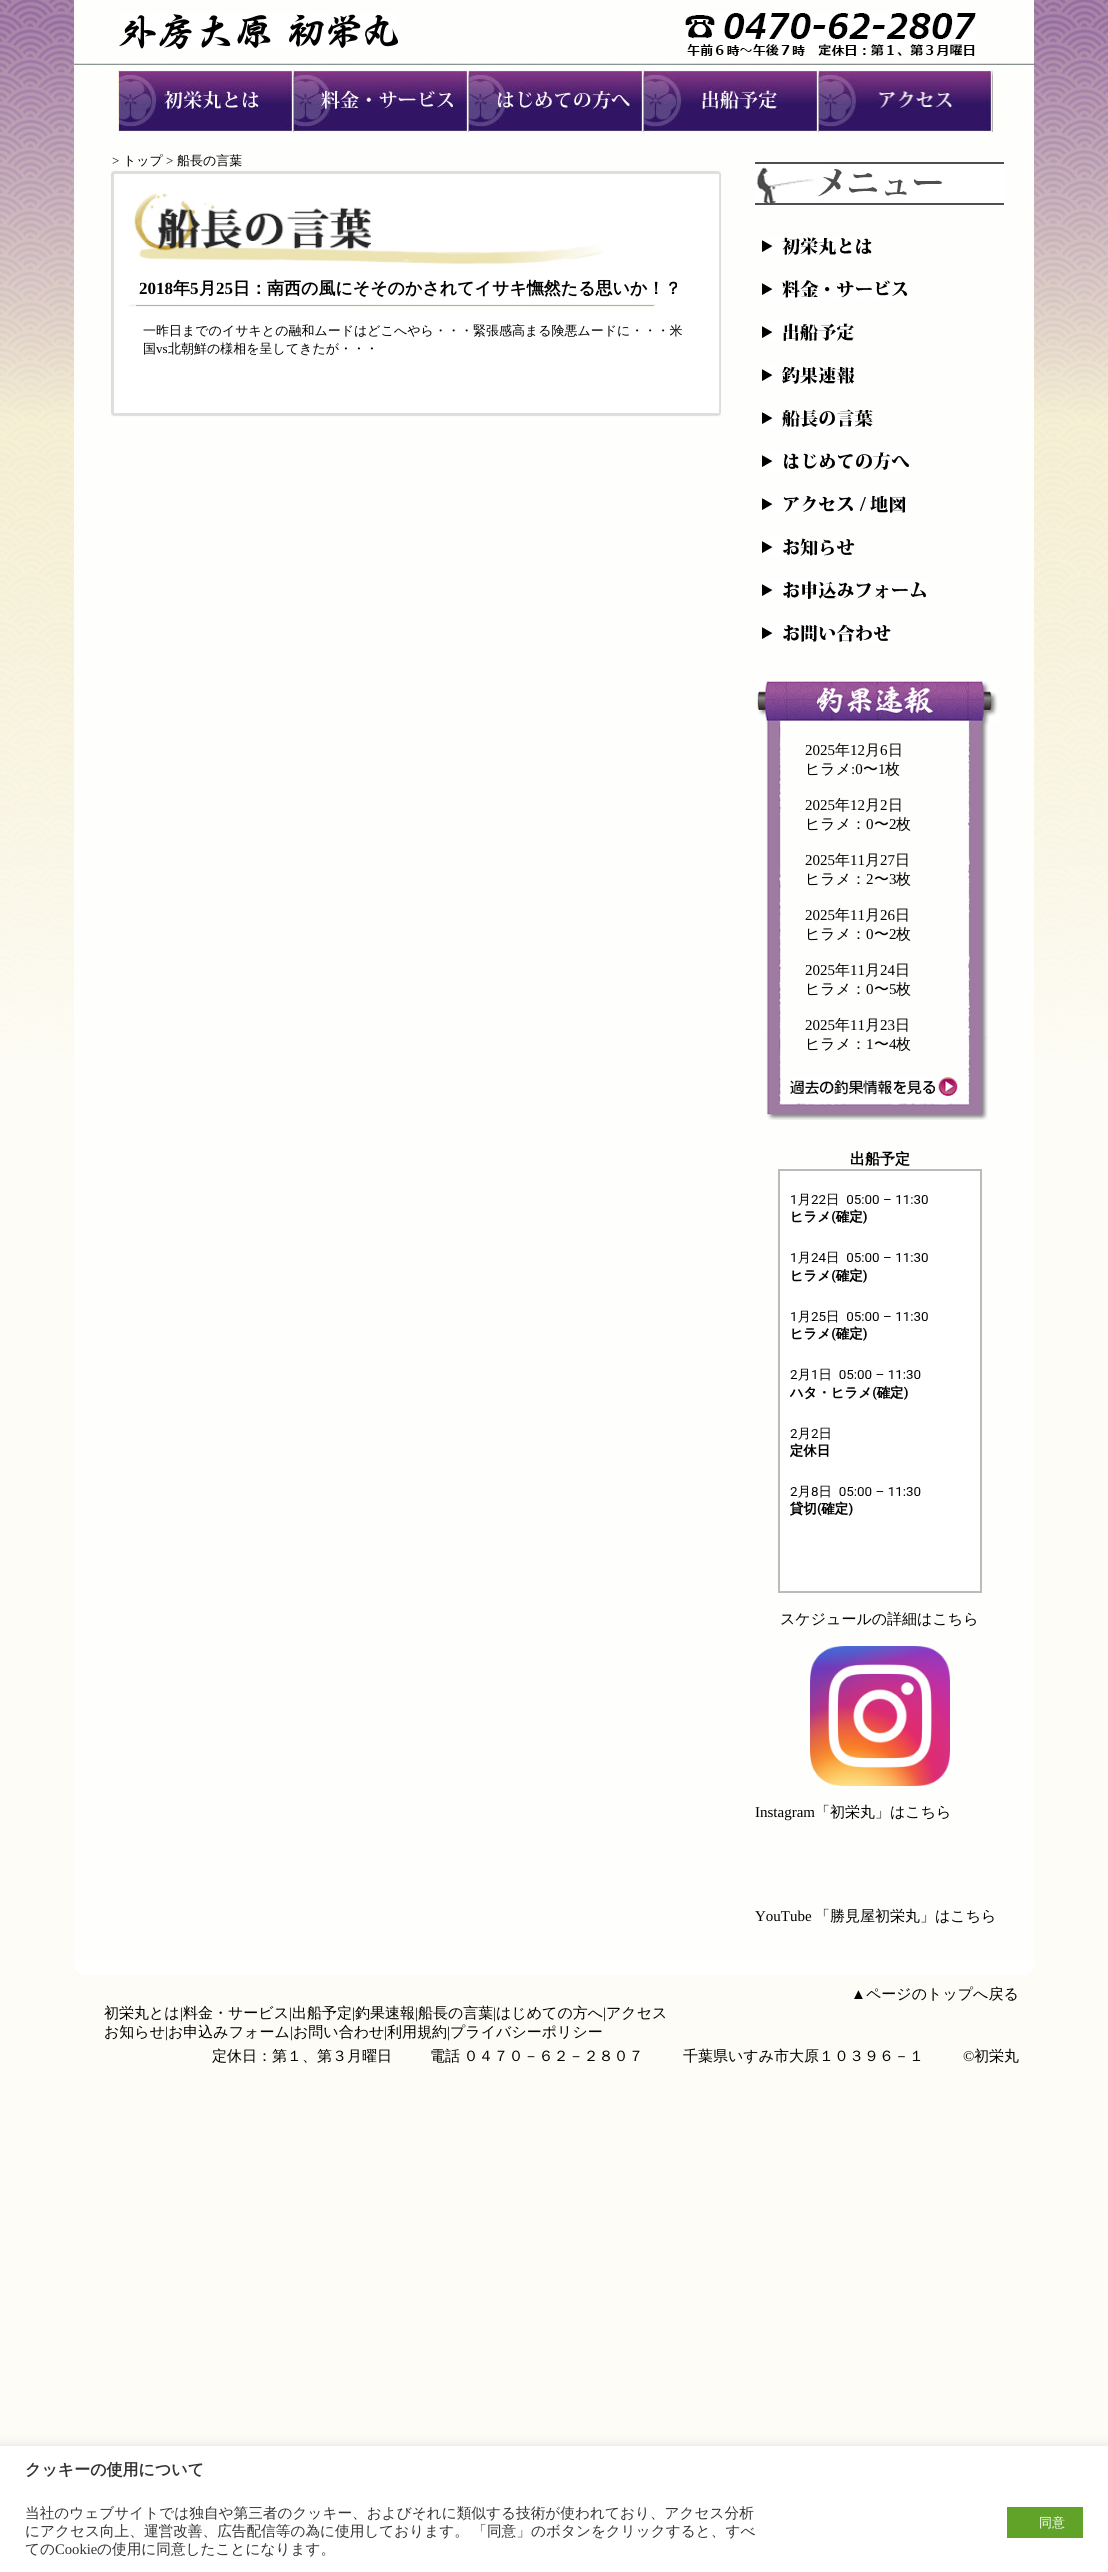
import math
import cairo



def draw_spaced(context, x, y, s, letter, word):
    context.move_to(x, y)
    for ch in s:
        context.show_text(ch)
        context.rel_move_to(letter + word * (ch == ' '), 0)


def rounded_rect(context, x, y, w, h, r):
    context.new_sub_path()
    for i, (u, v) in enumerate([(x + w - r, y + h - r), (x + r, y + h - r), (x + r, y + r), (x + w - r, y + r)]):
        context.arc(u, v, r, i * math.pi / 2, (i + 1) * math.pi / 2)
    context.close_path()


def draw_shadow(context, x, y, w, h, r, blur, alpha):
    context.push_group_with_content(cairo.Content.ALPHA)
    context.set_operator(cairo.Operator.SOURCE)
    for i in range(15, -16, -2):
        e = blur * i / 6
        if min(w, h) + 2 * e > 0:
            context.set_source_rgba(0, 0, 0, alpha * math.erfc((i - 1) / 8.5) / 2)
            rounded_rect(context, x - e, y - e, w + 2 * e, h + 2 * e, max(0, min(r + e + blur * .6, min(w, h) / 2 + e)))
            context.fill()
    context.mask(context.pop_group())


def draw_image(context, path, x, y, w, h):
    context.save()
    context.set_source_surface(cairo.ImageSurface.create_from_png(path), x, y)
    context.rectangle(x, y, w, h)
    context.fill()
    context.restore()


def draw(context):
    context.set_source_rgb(253 / 255, 252 / 255, 246 / 255)
    context.paint()
    draw_image(context, "images/1.png", 0, 0, 1108, 1060)
    context.set_source_rgb(254 / 255, 254 / 255, 252 / 255)
    context.rectangle(74, 0, 960, 1960)
    context.fill()
    draw_image(context, "images/2.png", 119, 14, 279, 35)
    draw_image(context, "images/3.png", 685, 13, 291, 43)
    draw_image(context, "images/4.png", 74, 63, 960, 2)
    draw_image(context, "images/5.png", 118, 70, 175, 62)
    draw_image(context, "images/6.png", 293, 70, 175, 62)
    draw_image(context, "images/7.png", 468, 70, 175, 62)
    draw_image(context, "images/8.png", 643, 70, 175, 62)
    draw_image(context, "images/9.png", 818, 70, 175, 62)
    draw_image(context, "images/10.png", 110, 170, 611, 4)
    draw_image(context, "images/11.png", 111, 174, 610, 239)
    draw_image(context, "images/12.png", 134, 194, 470, 70)
    draw_image(context, "images/13.png", 129, 304, 527, 3)
    draw_image(context, "images/14.png", 110, 413, 611, 4)
    draw_image(context, "images/15.png", 755, 162, 249, 43)
    draw_image(context, "images/16.png", 762, 237, 110, 18)
    draw_image(context, "images/17.png", 762, 280, 146, 18)
    draw_image(context, "images/18.png", 762, 323, 92, 18)
    draw_image(context, "images/19.png", 762, 366, 93, 18)
    draw_image(context, "images/20.png", 762, 409, 111, 18)
    draw_image(context, "images/21.png", 762, 452, 147, 18)
    draw_image(context, "images/22.png", 762, 495, 144, 18)
    draw_image(context, "images/23.png", 762, 538, 93, 18)
    draw_image(context, "images/24.png", 762, 581, 164, 18)
    draw_image(context, "images/25.png", 762, 624, 129, 18)
    draw_image(context, "images/26.png", 757, 681, 241, 43)
    draw_image(context, "images/27.png", 766, 724, 16, 376)
    draw_image(context, "images/28.png", 967, 724, 21, 376)
    draw_image(context, "images/29.png", 789, 1077, 169, 19)
    draw_image(context, "images/30.png", 766, 1100, 222, 20)
    context.set_source_rgb(1, 1, 1)
    context.rectangle(779, 1170, 202, 422)
    context.fill_preserve()
    context.set_source_rgb(187 / 255, 187 / 255, 187 / 255)
    context.stroke()
    draw_image(context, "images/31.png", 790, 1193, 138, 323)
    draw_image(context, "images/32.png", 810, 1646, 140, 140)
    draw_image(context, "images/33.png", 74, 1960, 960, 15)
    context.set_source_rgb(172 / 255, 171 / 255, 171 / 255)
    draw_shadow(context, 0, 2445, 1108, 126, 0, 5, 0.3)
    context.set_source_rgb(1, 1, 1)
    context.rectangle(0, 2446, 1108, 126)
    context.fill()
    context.set_source_rgb(97 / 255, 162 / 255, 41 / 255)
    context.rectangle(1007, 2507, 76, 31)
    context.fill()
    context.select_font_face("Liberation Serif")
    context.set_font_size(13)
    context.set_source_rgb(0, 0, 0)
    context.move_to(112, 165)
    context.show_text(">")
    context.select_font_face("WenQuanYi Zen Hei Medium")
    context.move_to(123, 165)
    context.show_text("トップ")
    context.select_font_face("Liberation Serif")
    context.move_to(166, 165)
    context.show_text(">")
    context.select_font_face("WenQuanYi Zen Hei Medium")
    context.move_to(177, 165)
    context.show_text("船長の言葉")
    context.select_font_face("Liberation Serif", cairo.FontSlant.NORMAL, cairo.FontWeight.BOLD)
    context.set_font_size(17)
    context.move_to(139, 294)
    context.show_text("2018")
    context.select_font_face("WenQuanYi Zen Hei", cairo.FontSlant.NORMAL, cairo.FontWeight.BOLD)
    context.move_to(173, 294)
    context.show_text("年")
    context.select_font_face("Liberation Serif", cairo.FontSlant.NORMAL, cairo.FontWeight.BOLD)
    context.move_to(190, 294)
    context.show_text("5")
    context.select_font_face("WenQuanYi Zen Hei", cairo.FontSlant.NORMAL, cairo.FontWeight.BOLD)
    context.move_to(199, 294)
    context.show_text("月")
    context.select_font_face("Liberation Serif", cairo.FontSlant.NORMAL, cairo.FontWeight.BOLD)
    context.move_to(216, 294)
    context.show_text("25")
    context.select_font_face("WenQuanYi Zen Hei", cairo.FontSlant.NORMAL, cairo.FontWeight.BOLD)
    context.move_to(233, 294)
    context.show_text("日：南西の風にそそのかされてイサキ憮然たる思いか！？")
    context.select_font_face("WenQuanYi Zen Hei Medium")
    context.set_font_size(13)
    context.move_to(143, 335)
    context.show_text("一昨日までのイサキとの融和ムードはどこへやら・・・緊張感高まる険悪ムードに・・・米")
    context.move_to(143, 353)
    context.show_text("国")
    context.select_font_face("Liberation Serif")
    context.move_to(156, 353)
    context.show_text("vs")
    context.select_font_face("WenQuanYi Zen Hei Medium")
    context.move_to(168, 353)
    context.show_text("北朝鮮の様相を呈してきたが・・・")
    context.select_font_face("Liberation Serif")
    context.set_font_size(15)
    context.move_to(805, 755)
    context.show_text("2025")
    context.select_font_face("WenQuanYi Zen Hei Medium")
    context.move_to(835, 755)
    context.show_text("年")
    context.select_font_face("Liberation Serif")
    context.move_to(850, 755)
    context.show_text("12")
    context.select_font_face("WenQuanYi Zen Hei Medium")
    context.move_to(865, 755)
    context.show_text("月")
    context.select_font_face("Liberation Serif")
    context.move_to(880, 755)
    context.show_text("6")
    context.select_font_face("WenQuanYi Zen Hei Medium")
    context.move_to(888, 755)
    context.show_text("日")
    context.move_to(805, 774)
    context.show_text("ヒラメ")
    context.select_font_face("Liberation Serif")
    context.move_to(851, 774)
    context.show_text(":0")
    context.select_font_face("WenQuanYi Zen Hei Medium")
    context.move_to(863, 774)
    context.show_text("〜")
    context.select_font_face("Liberation Serif")
    context.move_to(878, 774)
    context.show_text("1")
    context.select_font_face("WenQuanYi Zen Hei Medium")
    context.move_to(885, 774)
    context.show_text("枚")
    context.select_font_face("Liberation Serif")
    context.move_to(805, 810)
    context.show_text("2025")
    context.select_font_face("WenQuanYi Zen Hei Medium")
    context.move_to(835, 810)
    context.show_text("年")
    context.select_font_face("Liberation Serif")
    context.move_to(850, 810)
    context.show_text("12")
    context.select_font_face("WenQuanYi Zen Hei Medium")
    context.move_to(865, 810)
    context.show_text("月")
    context.select_font_face("Liberation Serif")
    context.move_to(880, 810)
    context.show_text("2")
    context.select_font_face("WenQuanYi Zen Hei Medium")
    context.move_to(888, 810)
    context.show_text("日")
    context.move_to(805, 829)
    context.show_text("ヒラメ：")
    context.select_font_face("Liberation Serif")
    context.move_to(866, 829)
    context.show_text("0")
    context.select_font_face("WenQuanYi Zen Hei Medium")
    context.move_to(874, 829)
    context.show_text("〜")
    context.select_font_face("Liberation Serif")
    context.move_to(889, 829)
    context.show_text("2")
    context.select_font_face("WenQuanYi Zen Hei Medium")
    context.move_to(896, 829)
    context.show_text("枚")
    context.select_font_face("Liberation Serif")
    context.move_to(805, 865)
    context.show_text("2025")
    context.select_font_face("WenQuanYi Zen Hei Medium")
    context.move_to(835, 865)
    context.show_text("年")
    context.select_font_face("Liberation Serif")
    context.move_to(850, 865)
    context.show_text("11")
    context.select_font_face("WenQuanYi Zen Hei Medium")
    context.move_to(865, 865)
    context.show_text("月")
    context.select_font_face("Liberation Serif")
    context.move_to(880, 865)
    context.show_text("27")
    context.select_font_face("WenQuanYi Zen Hei Medium")
    context.move_to(895, 865)
    context.show_text("日")
    context.move_to(805, 884)
    context.show_text("ヒラメ：")
    context.select_font_face("Liberation Serif")
    context.move_to(866, 884)
    context.show_text("2")
    context.select_font_face("WenQuanYi Zen Hei Medium")
    context.move_to(874, 884)
    context.show_text("〜")
    context.select_font_face("Liberation Serif")
    context.move_to(889, 884)
    context.show_text("3")
    context.select_font_face("WenQuanYi Zen Hei Medium")
    context.move_to(896, 884)
    context.show_text("枚")
    context.select_font_face("Liberation Serif")
    context.move_to(805, 920)
    context.show_text("2025")
    context.select_font_face("WenQuanYi Zen Hei Medium")
    context.move_to(835, 920)
    context.show_text("年")
    context.select_font_face("Liberation Serif")
    context.move_to(850, 920)
    context.show_text("11")
    context.select_font_face("WenQuanYi Zen Hei Medium")
    context.move_to(865, 920)
    context.show_text("月")
    context.select_font_face("Liberation Serif")
    context.move_to(880, 920)
    context.show_text("26")
    context.select_font_face("WenQuanYi Zen Hei Medium")
    context.move_to(895, 920)
    context.show_text("日")
    context.move_to(805, 939)
    context.show_text("ヒラメ：")
    context.select_font_face("Liberation Serif")
    context.move_to(866, 939)
    context.show_text("0")
    context.select_font_face("WenQuanYi Zen Hei Medium")
    context.move_to(874, 939)
    context.show_text("〜")
    context.select_font_face("Liberation Serif")
    context.move_to(889, 939)
    context.show_text("2")
    context.select_font_face("WenQuanYi Zen Hei Medium")
    context.move_to(896, 939)
    context.show_text("枚")
    context.select_font_face("Liberation Serif")
    context.move_to(805, 975)
    context.show_text("2025")
    context.select_font_face("WenQuanYi Zen Hei Medium")
    context.move_to(835, 975)
    context.show_text("年")
    context.select_font_face("Liberation Serif")
    context.move_to(850, 975)
    context.show_text("11")
    context.select_font_face("WenQuanYi Zen Hei Medium")
    context.move_to(865, 975)
    context.show_text("月")
    context.select_font_face("Liberation Serif")
    context.move_to(880, 975)
    context.show_text("24")
    context.select_font_face("WenQuanYi Zen Hei Medium")
    context.move_to(895, 975)
    context.show_text("日")
    context.move_to(805, 994)
    context.show_text("ヒラメ：")
    context.select_font_face("Liberation Serif")
    context.move_to(866, 994)
    context.show_text("0")
    context.select_font_face("WenQuanYi Zen Hei Medium")
    context.move_to(874, 994)
    context.show_text("〜")
    context.select_font_face("Liberation Serif")
    context.move_to(889, 994)
    context.show_text("5")
    context.select_font_face("WenQuanYi Zen Hei Medium")
    context.move_to(896, 994)
    context.show_text("枚")
    context.select_font_face("Liberation Serif")
    context.move_to(805, 1030)
    context.show_text("2025")
    context.select_font_face("WenQuanYi Zen Hei Medium")
    context.move_to(835, 1030)
    context.show_text("年")
    context.select_font_face("Liberation Serif")
    context.move_to(850, 1030)
    context.show_text("11")
    context.select_font_face("WenQuanYi Zen Hei Medium")
    context.move_to(865, 1030)
    context.show_text("月")
    context.select_font_face("Liberation Serif")
    context.move_to(880, 1030)
    context.show_text("23")
    context.select_font_face("WenQuanYi Zen Hei Medium")
    context.move_to(895, 1030)
    context.show_text("日")
    context.move_to(805, 1049)
    context.show_text("ヒラメ：")
    context.select_font_face("Liberation Serif")
    context.move_to(866, 1049)
    context.show_text("1")
    context.select_font_face("WenQuanYi Zen Hei Medium")
    context.move_to(874, 1049)
    context.show_text("〜")
    context.select_font_face("Liberation Serif")
    context.move_to(889, 1049)
    context.show_text("4")
    context.select_font_face("WenQuanYi Zen Hei Medium")
    context.move_to(896, 1049)
    context.show_text("枚")
    context.select_font_face("WenQuanYi Zen Hei", cairo.FontSlant.NORMAL, cairo.FontWeight.BOLD)
    context.move_to(850, 1164)
    context.show_text("出船予定")
    context.select_font_face("WenQuanYi Zen Hei Medium")
    context.move_to(780, 1624)
    context.show_text("スケジュールの詳細はこちら")
    context.select_font_face("Liberation Serif")
    context.move_to(755, 1817)
    context.show_text("Instagram")
    context.select_font_face("WenQuanYi Zen Hei Medium")
    context.move_to(815, 1817)
    context.show_text("「初栄丸」はこちら")
    context.select_font_face("Liberation Serif")
    context.move_to(755, 1921)
    context.show_text("YouTube")
    context.select_font_face("WenQuanYi Zen Hei Medium")
    context.move_to(815, 1921)
    context.show_text("「勝見屋初栄丸」はこちら")
    context.select_font_face("Liberation Serif")
    context.move_to(851, 1999)
    context.show_text("▲")
    context.select_font_face("WenQuanYi Zen Hei Medium")
    context.move_to(866, 1999)
    context.show_text("ページのトップへ戻る")
    context.move_to(104, 2018)
    context.show_text("初栄丸とは")
    context.select_font_face("Liberation Serif")
    context.move_to(180, 2018)
    context.show_text("|")
    context.select_font_face("WenQuanYi Zen Hei Medium")
    context.move_to(183, 2018)
    context.show_text("料金・サービス")
    context.select_font_face("Liberation Serif")
    context.move_to(289, 2018)
    context.show_text("|")
    context.select_font_face("WenQuanYi Zen Hei Medium")
    context.move_to(292, 2018)
    context.show_text("出船予定")
    context.select_font_face("Liberation Serif")
    context.move_to(352, 2018)
    context.show_text("|")
    context.select_font_face("WenQuanYi Zen Hei Medium")
    context.move_to(355, 2018)
    context.show_text("釣果速報")
    context.select_font_face("Liberation Serif")
    context.move_to(415, 2018)
    context.show_text("|")
    context.select_font_face("WenQuanYi Zen Hei Medium")
    context.move_to(418, 2018)
    context.show_text("船長の言葉")
    context.select_font_face("Liberation Serif")
    context.move_to(493, 2018)
    context.show_text("|")
    context.select_font_face("WenQuanYi Zen Hei Medium")
    context.move_to(496, 2018)
    context.show_text("はじめての方へ")
    context.select_font_face("Liberation Serif")
    context.move_to(603, 2018)
    context.show_text("|")
    context.select_font_face("WenQuanYi Zen Hei Medium")
    context.move_to(606, 2018)
    context.show_text("アクセス")
    context.move_to(104, 2037)
    context.show_text("お知らせ")
    context.select_font_face("Liberation Serif")
    context.move_to(165, 2037)
    context.show_text("|")
    context.select_font_face("WenQuanYi Zen Hei Medium")
    context.move_to(168, 2037)
    context.show_text("お申込みフォーム")
    context.select_font_face("Liberation Serif")
    context.move_to(290, 2037)
    context.show_text("|")
    context.select_font_face("WenQuanYi Zen Hei Medium")
    context.move_to(293, 2037)
    context.show_text("お問い合わせ")
    context.select_font_face("Liberation Serif")
    context.move_to(384, 2037)
    context.show_text("|")
    context.select_font_face("WenQuanYi Zen Hei Medium")
    context.move_to(387, 2037)
    context.show_text("利用規約")
    context.select_font_face("Liberation Serif")
    context.move_to(447, 2037)
    context.show_text("|")
    context.select_font_face("WenQuanYi Zen Hei Medium")
    context.move_to(450, 2037)
    context.show_text("プライバシーポリシー")
    context.move_to(212, 2061)
    context.show_text("定休日：第１、第３月曜日")
    draw_spaced(context, 430, 2061, "電話 ０４７０－６２－２８０７", 0, -1)
    context.move_to(683, 2061)
    context.show_text("千葉県いすみ市大原１０３９６－１")
    context.select_font_face("Liberation Serif")
    context.move_to(963, 2061)
    context.show_text("©")
    context.select_font_face("WenQuanYi Zen Hei Medium")
    context.move_to(974, 2061)
    context.show_text("初栄丸")
    context.select_font_face("WenQuanYi Zen Hei", cairo.FontSlant.NORMAL, cairo.FontWeight.BOLD)
    context.set_font_size(16)
    context.set_source_rgb(51 / 255, 51 / 255, 51 / 255)
    context.move_to(25, 2475)
    context.show_text("クッキーの使用について")
    context.select_font_face("WenQuanYi Zen Hei Medium")
    context.set_font_size(14.65)
    context.move_to(25, 2518)
    context.show_text("当社のウェブサイトでは独自や第三者のクッキー、およびそれに類似する技術が使われており、アクセス分析")
    draw_spaced(context, 25, 2536, "にアクセス向上、運営改善、広告配信等の為に使用しております。 「同意」のボタンをクリックすると、すべ", 0, -1)
    context.move_to(25, 2554)
    context.show_text("ての")
    context.select_font_face("Liberation Serif")
    context.move_to(55, 2554)
    context.show_text("Cookie")
    context.select_font_face("WenQuanYi Zen Hei Medium")
    context.move_to(97, 2554)
    context.show_text("の使用に同意したことになります。")
    context.set_font_size(13)
    context.set_source_rgb(1, 1, 1)
    context.move_to(1039, 2527)
    context.show_text("同意")


surface = cairo.ImageSurface(cairo.Format.RGB24, 1108, 2572)
context = cairo.Context(surface)
options = cairo.FontOptions()
options.set_hint_metrics(cairo.HintMetrics.OFF)
options.set_hint_style(cairo.HintStyle.NONE)
context.set_font_options(options)
context.set_miter_limit(4)
draw(context)
surface.write_to_png("out.png")
